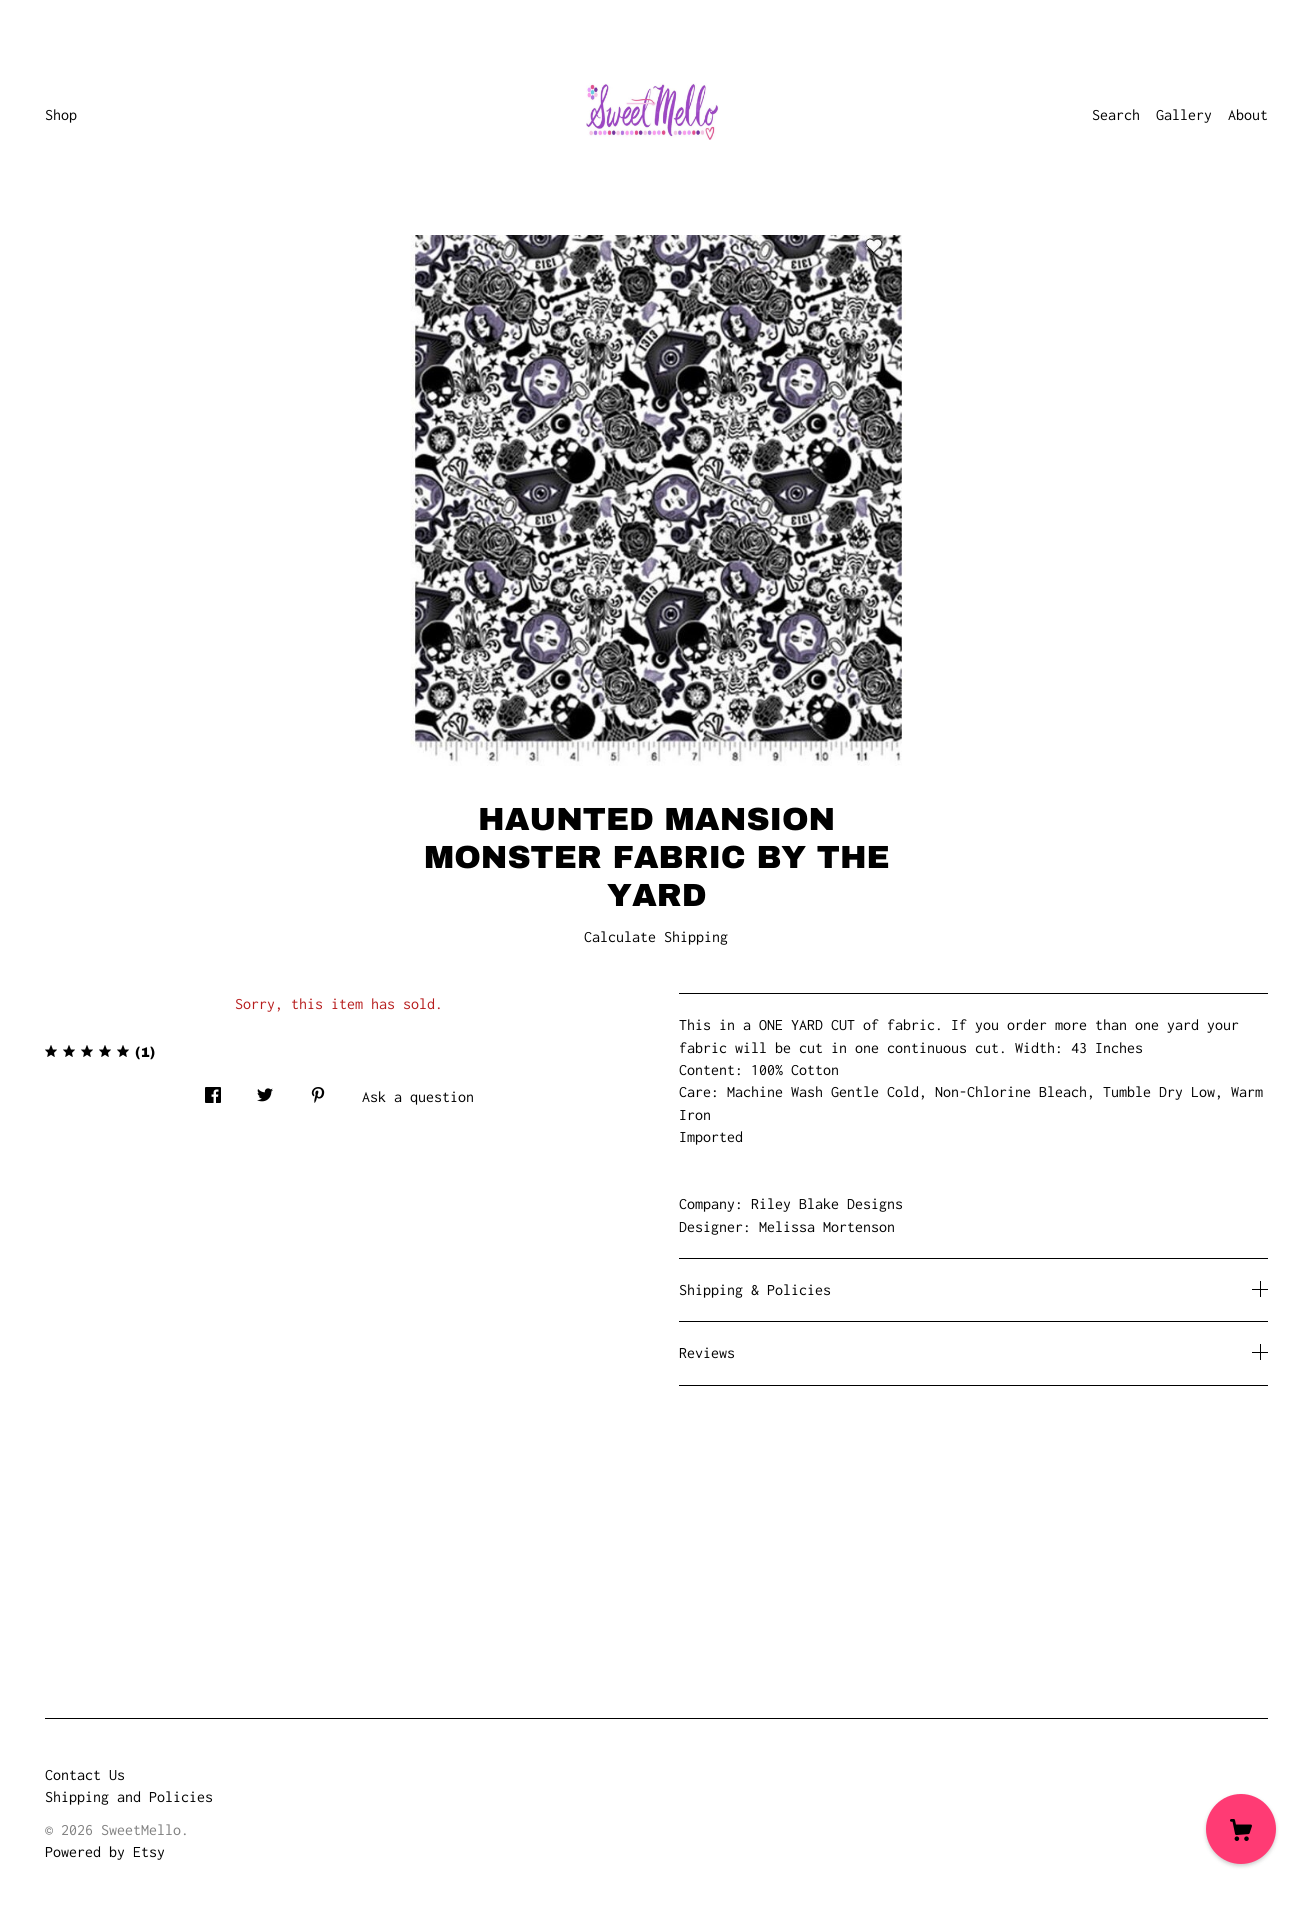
import math
import cairo



def rounded_rect(context, x, y, w, h, r):
    context.new_sub_path()
    for i, (u, v) in enumerate([(x + w - r, y + h - r), (x + r, y + h - r), (x + r, y + r), (x + w - r, y + r)]):
        context.arc(u, v, r, i * math.pi / 2, (i + 1) * math.pi / 2)
    context.close_path()


def draw_shadow(context, x, y, w, h, r, blur, alpha):
    context.push_group_with_content(cairo.Content.ALPHA)
    context.set_operator(cairo.Operator.SOURCE)
    for i in range(15, -16, -2):
        e = blur * i / 6
        if min(w, h) + 2 * e > 0:
            context.set_source_rgba(0, 0, 0, alpha * math.erfc((i - 1) / 8.5) / 2)
            rounded_rect(context, x - e, y - e, w + 2 * e, h + 2 * e, max(0, min(r + e + blur * .6, min(w, h) / 2 + e)))
            context.fill()
    context.mask(context.pop_group())


def draw_image(context, path, x, y, w, h):
    context.save()
    context.set_source_surface(cairo.ImageSurface.create_from_png(path), x, y)
    context.rectangle(x, y, w, h)
    context.fill()
    context.restore()


def draw(context):
    context.set_source_rgb(1, 1, 1)
    context.paint()
    draw_image(context, "images/1.png", 586, 83, 133, 57)
    draw_image(context, "images/2.png", 410, 235, 496, 531)
    draw_image(context, "images/3.png", 45, 1045, 12, 12)
    draw_image(context, "images/3.png", 63, 1045, 12, 12)
    draw_image(context, "images/3.png", 81, 1045, 12, 12)
    draw_image(context, "images/3.png", 99, 1045, 12, 12)
    draw_image(context, "images/3.png", 117, 1045, 12, 12)
    draw_image(context, "images/4.png", 205, 1087, 16, 16)
    draw_image(context, "images/5.png", 257, 1088, 16, 14)
    draw_image(context, "images/6.png", 311, 1087, 14, 16)
    context.set_source_rgb(0, 0, 0)
    context.rectangle(679, 993, 589, 1)
    context.fill()
    context.rectangle(679, 1258, 589, 1)
    context.fill()
    context.rectangle(679, 1321, 589, 1)
    context.fill()
    context.rectangle(1252, 1289, 16, 1)
    context.fill()
    context.rectangle(1260, 1281, 1, 16)
    context.fill()
    context.rectangle(679, 1385, 589, 1)
    context.fill()
    context.rectangle(1252, 1352, 16, 1)
    context.fill()
    context.rectangle(1260, 1344, 1, 16)
    context.fill()
    context.rectangle(45, 1718, 1223, 1)
    context.fill()
    context.set_source_rgb(0, 0, 0)
    draw_shadow(context, 1206, 1796, 70, 70, 35, 2, 0.2)
    context.set_source_rgb(1, 59 / 255, 116 / 255)
    context.arc(1241, 1829, 35, 0, 2 * math.pi)
    context.fill()
    draw_image(context, "images/7.png", 1230, 1819, 22, 22)
    context.select_font_face("Inconsolata")
    context.set_font_size(16)
    context.set_source_rgb(0, 0, 0)
    context.move_to(45, 120)
    context.show_text("Shop")
    context.move_to(1092, 120)
    context.show_text("Search")
    context.move_to(1156, 120)
    context.show_text("Gallery")
    context.move_to(1228, 120)
    context.show_text("About")
    context.select_font_face("Archivo Black Black")
    context.set_font_size(32)
    context.move_to(478, 830)
    context.show_text("HAUNTED MANSION")
    context.move_to(424, 868)
    context.show_text("MONSTER FABRIC BY THE")
    context.move_to(607, 906)
    context.show_text("YARD")
    context.select_font_face("Inconsolata")
    context.set_font_size(16)
    context.move_to(584, 942)
    context.show_text("Calculate Shipping")
    context.set_source_rgb(183 / 255, 28 / 255, 28 / 255)
    context.move_to(235, 1009)
    context.show_text("Sorry, this item has sold.")
    context.select_font_face("Archivo Black Black")
    context.set_font_size(14)
    context.set_source_rgb(0, 0, 0)
    context.move_to(135, 1057)
    context.show_text("(1)")
    context.select_font_face("Inconsolata")
    context.set_font_size(16)
    context.move_to(362, 1102)
    context.show_text("Ask a question")
    context.move_to(679, 1030)
    context.show_text("This in a ONE YARD CUT of fabric. If you order more than one yard your")
    context.move_to(679, 1053)
    context.show_text("fabric will be cut in one continuous cut. Width: 43 Inches")
    context.move_to(679, 1075)
    context.show_text("Content: 100% Cotton")
    context.move_to(679, 1097)
    context.show_text("Care: Machine Wash Gentle Cold, Non-Chlorine Bleach, Tumble Dry Low, Warm")
    context.move_to(679, 1120)
    context.show_text("Iron")
    context.move_to(679, 1142)
    context.show_text("Imported")
    context.move_to(679, 1209)
    context.show_text("Company: Riley Blake Designs")
    context.move_to(679, 1232)
    context.show_text("Designer: Melissa Mortenson")
    context.move_to(679, 1295)
    context.show_text("Shipping & Policies")
    context.move_to(679, 1358)
    context.show_text("Reviews")
    context.move_to(45, 1780)
    context.show_text("Contact Us")
    context.move_to(45, 1802)
    context.show_text("Shipping and Policies")
    context.set_source_rgb(128 / 255, 128 / 255, 128 / 255)
    context.move_to(45, 1835)
    context.show_text("© 2026 SweetMello.")
    context.set_source_rgb(0, 0, 0)
    context.move_to(45, 1857)
    context.show_text("Powered by Etsy")


surface = cairo.ImageSurface(cairo.Format.RGB24, 1313, 1909)
context = cairo.Context(surface)
options = cairo.FontOptions()
options.set_hint_metrics(cairo.HintMetrics.OFF)
options.set_hint_style(cairo.HintStyle.NONE)
context.set_font_options(options)
context.set_miter_limit(4)
draw(context)
surface.write_to_png("out.png")
